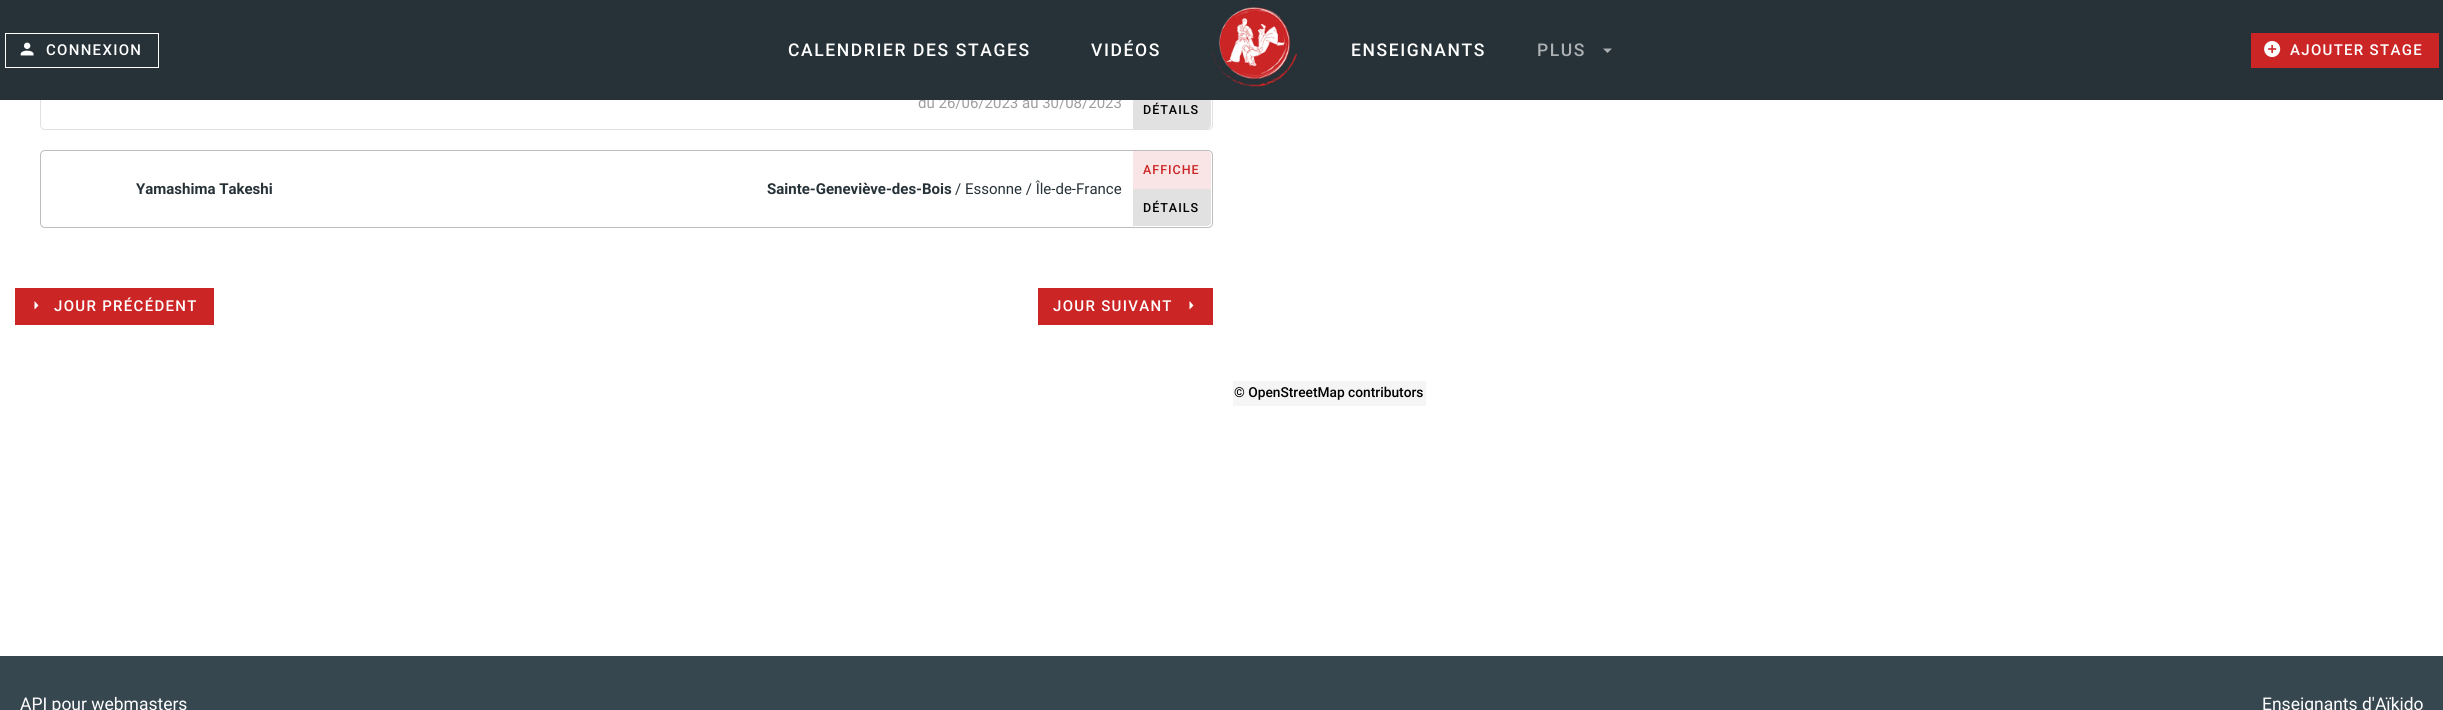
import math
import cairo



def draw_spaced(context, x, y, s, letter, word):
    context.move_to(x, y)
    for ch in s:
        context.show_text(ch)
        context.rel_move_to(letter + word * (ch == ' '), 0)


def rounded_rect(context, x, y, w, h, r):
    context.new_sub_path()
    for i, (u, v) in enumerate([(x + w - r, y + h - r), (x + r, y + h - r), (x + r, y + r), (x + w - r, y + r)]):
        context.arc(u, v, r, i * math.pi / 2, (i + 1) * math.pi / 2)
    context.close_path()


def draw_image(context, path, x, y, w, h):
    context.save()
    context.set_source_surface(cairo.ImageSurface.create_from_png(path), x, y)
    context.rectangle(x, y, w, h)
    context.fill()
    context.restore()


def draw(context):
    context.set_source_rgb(1, 1, 1)
    context.paint()
    rounded_rect(context, 40.5, 53.5, 1172, 76, 4.5)
    context.set_source_rgb(224 / 255, 224 / 255, 224 / 255)
    context.set_line_width(1)
    context.stroke()
    context.set_source_rgba(0, 0, 0, 0.12)
    context.new_path()
    context.move_to(1133, 91)
    context.line_to(1211, 91)
    context.line_to(1211, 125)
    context.curve_to(1211, 127, 1209, 129, 1207, 129)
    context.line_to(1133, 129)
    context.close_path()
    context.fill()
    rounded_rect(context, 40.5, 150.5, 1172, 77, 4.5)
    context.set_source_rgb(189 / 255, 189 / 255, 189 / 255)
    context.stroke()
    context.set_source_rgba(204 / 255, 37 / 255, 38 / 255, 0.12)
    context.new_path()
    context.move_to(1133, 151)
    context.line_to(1207, 151)
    context.curve_to(1209, 151, 1211, 153, 1211, 155)
    context.line_to(1211, 189)
    context.line_to(1133, 189)
    context.close_path()
    context.fill()
    context.set_source_rgba(0, 0, 0, 0.12)
    context.new_path()
    context.move_to(1133, 189)
    context.line_to(1211, 189)
    context.line_to(1211, 222)
    context.curve_to(1211, 224, 1209, 226, 1207, 226)
    context.line_to(1133, 226)
    context.close_path()
    context.fill()
    context.set_source_rgb(204 / 255, 37 / 255, 38 / 255)
    context.rectangle(15, 288, 199, 37)
    context.fill()
    context.set_source_rgb(1, 1, 1)
    context.new_path()
    context.move_to(34.5, 309.5)
    context.line_to(38.5, 305.5)
    context.line_to(34.5, 301)
    context.close_path()
    context.fill()
    context.set_source_rgb(204 / 255, 37 / 255, 38 / 255)
    context.rectangle(1038, 288, 175, 37)
    context.fill()
    context.set_source_rgb(1, 1, 1)
    context.new_path()
    context.move_to(1189.5, 309.5)
    context.line_to(1193.5, 305.5)
    context.line_to(1189.5, 301)
    context.close_path()
    context.fill()
    context.set_source_rgb(245 / 255, 245 / 255, 245 / 255)
    context.rectangle(1233, 381, 193, 25)
    context.fill()
    context.set_source_rgb(55 / 255, 71 / 255, 79 / 255)
    context.rectangle(0, 656, 2443, 54)
    context.fill()
    context.select_font_face("Roboto")
    context.set_font_size(15)
    context.set_source_rgb(158 / 255, 158 / 255, 158 / 255)
    context.move_to(918, 108)
    context.show_text("du 26/06/2023 au 30/08/2023")
    context.set_source_rgb(38 / 255, 50 / 255, 56 / 255)
    context.rectangle(0, 0, 2443, 100)
    context.fill()
    context.set_source_rgb(204 / 255, 37 / 255, 38 / 255)
    context.rectangle(2251, 33, 188, 35)
    context.fill()
    draw_image(context, "images/3.png", 2264, 41, 17, 16)
    context.select_font_face("Roboto Medium")
    context.set_source_rgb(1, 1, 1)
    draw_spaced(context, 2290, 55, "AJOUTER STAGE", 1.3, 0)
    context.set_source_rgb(173 / 255, 177 / 255, 179 / 255)
    context.new_path()
    context.move_to(1603, 48.5)
    context.line_to(1607.5, 53)
    context.line_to(1612, 48.5)
    context.close_path()
    context.fill()
    context.set_font_size(17.5)
    draw_spaced(context, 1537, 56, "PLUS", 1.6, 0)
    context.set_source_rgb(1, 1, 1)
    draw_spaced(context, 1351, 56, "ENSEIGNANTS", 1.6, 0)
    draw_spaced(context, 1091, 56, "VIDÉOS", 1.6, 0)
    draw_spaced(context, 788, 56, "CALENDRIER DES STAGES", 1.6, 0)
    context.rectangle(5.5, 33.5, 153, 34)
    context.stroke()
    draw_image(context, "images/1.png", 20, 42, 14, 14)
    context.set_font_size(15)
    draw_spaced(context, 46, 55, "CONNEXION", 1.3, 0)
    draw_image(context, "images/2.png", 1212, 7, 86, 80)
    context.set_font_size(12.5)
    context.set_source_rgb(0, 0, 0)
    draw_spaced(context, 1143, 114, "DÉTAILS", 1, 0)
    context.select_font_face("Roboto", cairo.FontSlant.NORMAL, cairo.FontWeight.BOLD)
    context.set_font_size(15)
    context.set_source_rgb(38 / 255, 50 / 255, 56 / 255)
    context.move_to(136, 194)
    context.show_text("Yamashima Takeshi")
    context.move_to(767, 194)
    context.show_text("Sainte-Geneviève-des-Bois")
    context.select_font_face("Roboto")
    context.move_to(955, 194)
    context.show_text("/ Essonne / Île-de-France")
    context.select_font_face("Roboto Medium")
    context.set_font_size(12.5)
    context.set_source_rgb(204 / 255, 37 / 255, 38 / 255)
    draw_spaced(context, 1143, 174, "AFFICHE", 1, 0)
    context.set_source_rgb(0, 0, 0)
    draw_spaced(context, 1143, 212, "DÉTAILS", 1, 0)
    context.set_font_size(15)
    context.set_source_rgb(1, 1, 1)
    draw_spaced(context, 54, 311, "JOUR PRÉCÉDENT", 1.3, 0)
    draw_spaced(context, 1053, 311, "JOUR SUIVANT", 1.3, 0)
    context.set_font_size(13.75)
    context.set_source_rgb(0, 0, 0)
    context.move_to(1234, 397)
    context.show_text("© OpenStreetMap contributors")
    context.select_font_face("Roboto")
    context.set_font_size(17.5)
    context.set_source_rgb(1, 1, 1)
    context.move_to(20, 710)
    context.show_text("API pour webmasters")
    context.move_to(2262, 710)
    context.show_text("Enseignants d'Aïkido")


surface = cairo.ImageSurface(cairo.Format.RGB24, 2443, 710)
context = cairo.Context(surface)
options = cairo.FontOptions()
options.set_hint_metrics(cairo.HintMetrics.OFF)
options.set_hint_style(cairo.HintStyle.NONE)
context.set_font_options(options)
context.set_miter_limit(4)
draw(context)
surface.write_to_png("out.png")
